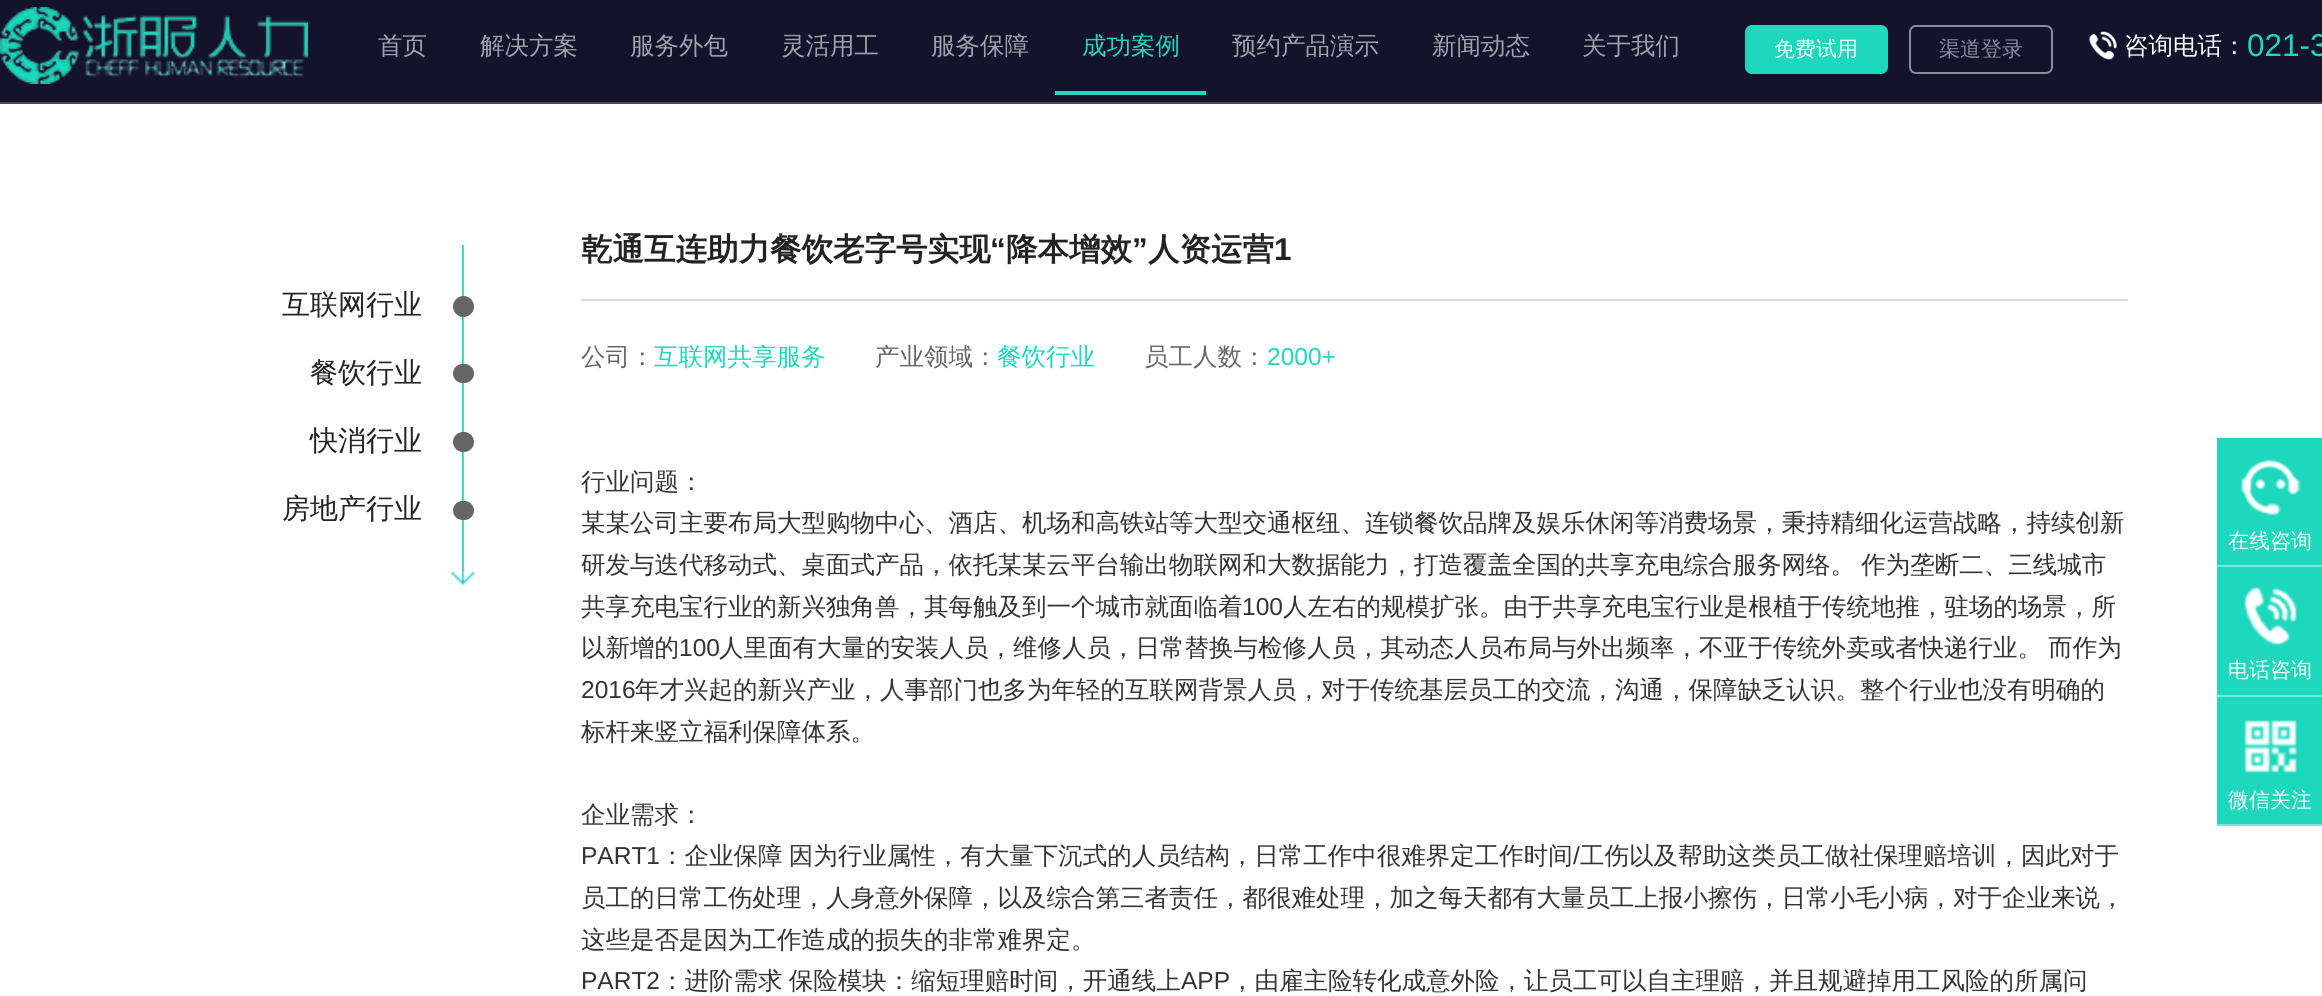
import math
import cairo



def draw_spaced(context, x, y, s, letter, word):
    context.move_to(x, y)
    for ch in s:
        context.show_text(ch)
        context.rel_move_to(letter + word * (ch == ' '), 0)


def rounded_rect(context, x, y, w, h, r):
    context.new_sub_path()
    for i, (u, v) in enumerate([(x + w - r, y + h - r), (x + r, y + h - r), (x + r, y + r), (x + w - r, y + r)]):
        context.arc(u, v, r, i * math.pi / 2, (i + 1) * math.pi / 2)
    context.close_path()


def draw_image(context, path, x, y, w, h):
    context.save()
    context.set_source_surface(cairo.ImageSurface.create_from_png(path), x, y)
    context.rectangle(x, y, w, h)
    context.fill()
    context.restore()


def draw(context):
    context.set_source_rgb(1, 1, 1)
    context.paint()
    context.set_source_rgb(19 / 255, 20 / 255, 44 / 255)
    context.rectangle(0, 0, 2322, 102)
    context.fill()
    context.set_source_rgb(73 / 255, 77 / 255, 84 / 255)
    context.rectangle(0, 102, 2322, 2)
    context.fill()
    draw_image(context, "images/1.png", 0, 7, 308, 77)
    context.set_source_rgb(29 / 255, 216 / 255, 189 / 255)
    context.rectangle(1055, 91, 151, 4)
    context.fill()
    rounded_rect(context, 1746, 26, 141, 47, 6)
    context.fill_preserve()
    context.stroke()
    rounded_rect(context, 1910, 26, 142, 47, 6)
    context.set_source_rgb(138 / 255, 139 / 255, 151 / 255)
    context.stroke()
    draw_image(context, "images/2.png", 2089, 31, 28, 29)
    draw_image(context, "images/3.png", 462, 245, 2, 328)
    context.set_source_rgb(102 / 255, 102 / 255, 102 / 255)
    context.arc(463.5, 306.5, 10.5, 0, 2 * math.pi)
    context.fill()
    rounded_rect(context, 453, 364, 21, 19, 9.5)
    context.fill()
    rounded_rect(context, 453, 432, 21, 20, 10)
    context.fill()
    rounded_rect(context, 453, 501, 21, 19, 9.5)
    context.fill()
    draw_image(context, "images/4.png", 451, 572, 24, 13)
    context.set_source_rgb(221 / 255, 221 / 255, 221 / 255)
    context.rectangle(581, 299, 1547, 2)
    context.fill()
    context.set_source_rgb(29 / 255, 216 / 255, 189 / 255)
    context.rectangle(2217, 438, 105, 386)
    context.fill()
    context.set_source_rgb(119 / 255, 232 / 255, 215 / 255)
    context.rectangle(2217, 565, 105, 2)
    context.fill()
    draw_image(context, "images/5.png", 2241, 459, 60, 57)
    context.rectangle(2217, 695, 105, 2)
    context.fill()
    draw_image(context, "images/6.png", 2244, 587, 53, 58)
    context.rectangle(2217, 824, 105, 2)
    context.fill()
    draw_image(context, "images/7.png", 2244, 720, 53, 53)
    context.select_font_face("WenQuanYi Zen Hei Medium")
    context.set_font_size(24.5)
    context.set_source_rgb(161 / 255, 161 / 255, 171 / 255)
    context.move_to(378, 54)
    context.show_text("首页")
    context.move_to(480, 54)
    context.show_text("解决方案")
    context.move_to(630, 54)
    context.show_text("服务外包")
    context.move_to(781, 54)
    context.show_text("灵活用工")
    context.move_to(931, 54)
    context.show_text("服务保障")
    context.set_source_rgb(29 / 255, 216 / 255, 189 / 255)
    context.move_to(1082, 54)
    context.show_text("成功案例")
    context.set_source_rgb(161 / 255, 161 / 255, 171 / 255)
    context.move_to(1232, 54)
    context.show_text("预约产品演示")
    context.move_to(1432, 54)
    context.show_text("新闻动态")
    context.move_to(1582, 54)
    context.show_text("关于我们")
    context.set_font_size(21)
    context.set_source_rgb(1, 1, 1)
    context.move_to(1774, 56)
    context.show_text("免费试用")
    context.set_source_rgb(138 / 255, 139 / 255, 151 / 255)
    context.move_to(1939, 56)
    context.show_text("渠道登录")
    context.set_font_size(24.5)
    context.set_source_rgb(1, 1, 1)
    context.move_to(2124, 54)
    context.show_text("咨询电话：")
    context.select_font_face("Liberation Sans")
    context.set_font_size(31.5)
    context.set_source_rgb(29 / 255, 216 / 255, 189 / 255)
    context.move_to(2247, 56)
    context.show_text("021-3")
    context.select_font_face("WenQuanYi Zen Hei Medium")
    context.set_font_size(28)
    context.set_source_rgb(35 / 255, 35 / 255, 35 / 255)
    context.move_to(282, 314)
    context.show_text("互联网行业")
    context.move_to(310, 382)
    context.show_text("餐饮行业")
    context.move_to(310, 450)
    context.show_text("快消行业")
    context.move_to(282, 518)
    context.show_text("房地产行业")
    context.select_font_face("WenQuanYi Zen Hei", cairo.FontSlant.NORMAL, cairo.FontWeight.BOLD)
    context.set_font_size(31.5)
    context.move_to(581, 260)
    context.show_text("乾通互连助力餐饮老字号实现")
    context.select_font_face("Liberation Sans", cairo.FontSlant.NORMAL, cairo.FontWeight.BOLD)
    context.move_to(990, 260)
    context.show_text("“")
    context.select_font_face("WenQuanYi Zen Hei", cairo.FontSlant.NORMAL, cairo.FontWeight.BOLD)
    context.move_to(1006, 260)
    context.show_text("降本增效")
    context.select_font_face("Liberation Sans", cairo.FontSlant.NORMAL, cairo.FontWeight.BOLD)
    context.move_to(1132, 260)
    context.show_text("”")
    context.select_font_face("WenQuanYi Zen Hei", cairo.FontSlant.NORMAL, cairo.FontWeight.BOLD)
    context.move_to(1148, 260)
    context.show_text("人资运营")
    context.select_font_face("Liberation Sans", cairo.FontSlant.NORMAL, cairo.FontWeight.BOLD)
    context.move_to(1274, 260)
    context.show_text("1")
    context.select_font_face("WenQuanYi Zen Hei Medium")
    context.set_font_size(24.5)
    context.set_source_rgb(102 / 255, 102 / 255, 102 / 255)
    context.move_to(581, 365)
    context.show_text("公司：")
    context.set_source_rgb(29 / 255, 216 / 255, 189 / 255)
    context.move_to(654, 365)
    context.show_text("互联网共享服务")
    context.set_source_rgb(102 / 255, 102 / 255, 102 / 255)
    context.move_to(875, 365)
    context.show_text("产业领域：")
    context.set_source_rgb(29 / 255, 216 / 255, 189 / 255)
    context.move_to(997, 365)
    context.show_text("餐饮行业")
    context.set_source_rgb(102 / 255, 102 / 255, 102 / 255)
    context.move_to(1144, 365)
    context.show_text("员工人数：")
    context.select_font_face("Liberation Sans")
    context.set_source_rgb(29 / 255, 216 / 255, 189 / 255)
    context.move_to(1267, 365)
    context.show_text("2000+")
    context.select_font_face("WenQuanYi Zen Hei Medium")
    context.set_source_rgb(51 / 255, 51 / 255, 51 / 255)
    context.move_to(581, 490)
    context.show_text("行业问题：")
    context.move_to(581, 531)
    context.show_text("某某公司主要布局大型购物中心、酒店、机场和高铁站等大型交通枢纽、连锁餐饮品牌及娱乐休闲等消费场景，秉持精细化运营战略，持续创新")
    draw_spaced(context, 581, 573, "研发与迭代移动式、桌面式产品，依托某某云平台输出物联网和大数据能力，打造覆盖全国的共享充电综合服务网络。 作为垄断二、三线城市", 0, -1)
    context.move_to(581, 615)
    context.show_text("共享充电宝行业的新兴独角兽，其每触及到一个城市就面临着")
    context.select_font_face("Liberation Sans")
    context.move_to(1242, 615)
    context.show_text("100")
    context.select_font_face("WenQuanYi Zen Hei Medium")
    context.move_to(1283, 615)
    context.show_text("人左右的规模扩张。由于共享充电宝行业是根植于传统地推，驻场的场景，所")
    context.move_to(581, 656)
    context.show_text("以新增的")
    context.select_font_face("Liberation Sans")
    context.move_to(679, 656)
    context.show_text("100")
    context.select_font_face("WenQuanYi Zen Hei Medium")
    draw_spaced(context, 719, 656, "人里面有大量的安装人员，维修人员，日常替换与检修人员，其动态人员布局与外出频率，不亚于传统外卖或者快递行业。 而作为", 0, -1)
    context.select_font_face("Liberation Sans")
    context.move_to(581, 698)
    context.show_text("2016")
    context.select_font_face("WenQuanYi Zen Hei Medium")
    context.move_to(635, 698)
    context.show_text("年才兴起的新兴产业，人事部门也多为年轻的互联网背景人员，对于传统基层员工的交流，沟通，保障缺乏认识。整个行业也没有明确的")
    context.move_to(581, 740)
    context.show_text("标杆来竖立福利保障体系。")
    context.move_to(581, 823)
    context.show_text("企业需求：")
    context.select_font_face("Liberation Sans")
    context.move_to(581, 864)
    context.show_text("PART1")
    context.select_font_face("WenQuanYi Zen Hei Medium")
    draw_spaced(context, 660, 864, "：企业保障 因为行业属性，有大量下沉式的人员结构，日常工作中很难界定工作时间", 0, -1)
    context.select_font_face("Liberation Sans")
    context.move_to(1573, 864)
    context.show_text("/")
    context.select_font_face("WenQuanYi Zen Hei Medium")
    context.move_to(1580, 864)
    context.show_text("工伤以及帮助这类员工做社保理赔培训，因此对于")
    context.move_to(581, 906)
    context.show_text("员工的日常工伤处理，人身意外保障，以及综合第三者责任，都很难处理，加之每天都有大量员工上报小擦伤，日常小毛小病，对于企业来说，")
    context.move_to(581, 948)
    context.show_text("这些是否是因为工作造成的损失的非常难界定。")
    context.select_font_face("Liberation Sans")
    context.move_to(581, 989)
    context.show_text("PART2")
    context.select_font_face("WenQuanYi Zen Hei Medium")
    draw_spaced(context, 660, 989, "：进阶需求 保险模块：缩短理赔时间，开通线上", 0, -1)
    context.select_font_face("Liberation Sans")
    context.move_to(1181, 989)
    context.show_text("APP")
    context.select_font_face("WenQuanYi Zen Hei Medium")
    context.move_to(1230, 989)
    context.show_text("，由雇主险转化成意外险，让员工可以自主理赔，并且规避掉用工风险的所属问")
    context.set_font_size(21)
    context.set_source_rgb(1, 1, 1)
    context.move_to(2228, 548)
    context.show_text("在线咨询")
    context.move_to(2228, 677)
    context.show_text("电话咨询")
    context.move_to(2228, 807)
    context.show_text("微信关注")


surface = cairo.ImageSurface(cairo.Format.RGB24, 2322, 996)
context = cairo.Context(surface)
options = cairo.FontOptions()
options.set_hint_metrics(cairo.HintMetrics.OFF)
options.set_hint_style(cairo.HintStyle.NONE)
context.set_font_options(options)
context.set_miter_limit(4)
draw(context)
surface.write_to_png("out.png")
